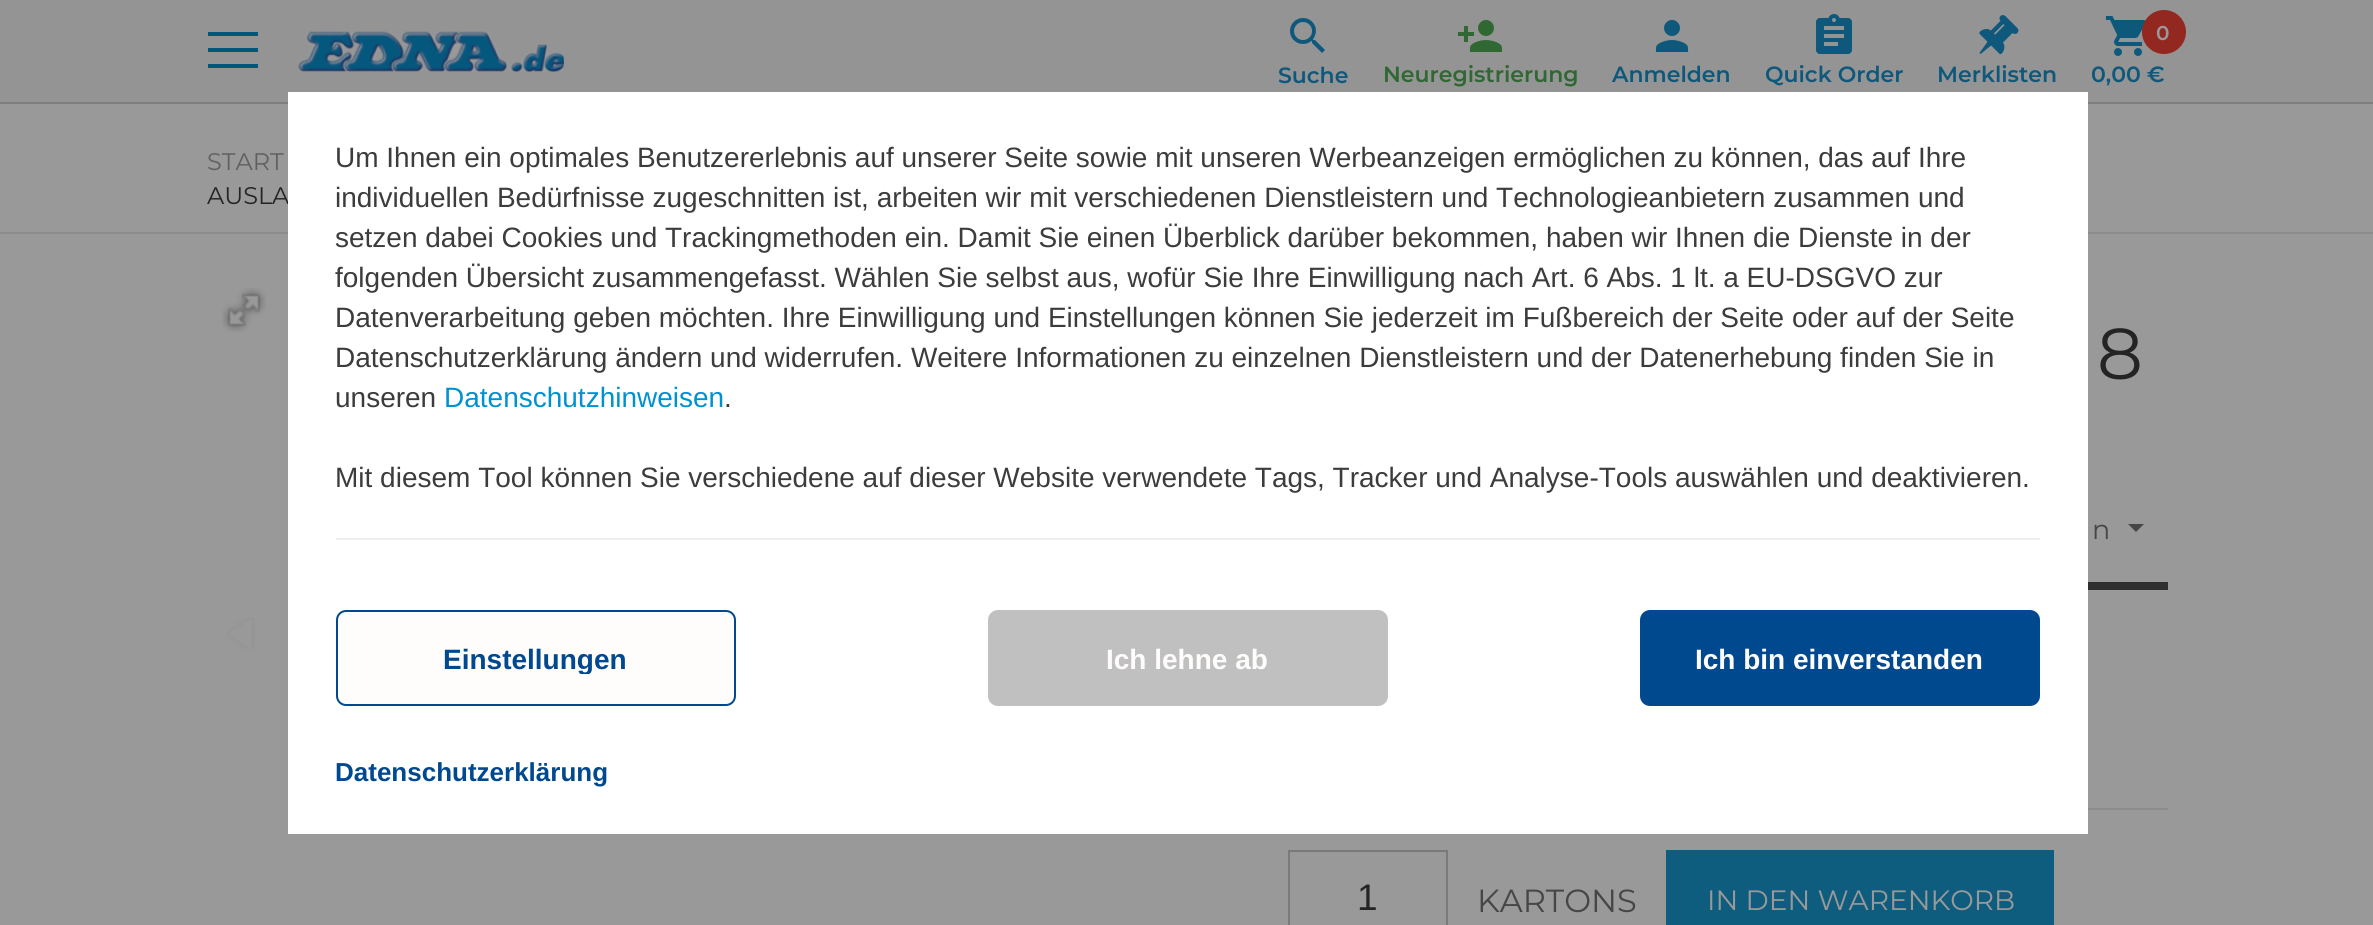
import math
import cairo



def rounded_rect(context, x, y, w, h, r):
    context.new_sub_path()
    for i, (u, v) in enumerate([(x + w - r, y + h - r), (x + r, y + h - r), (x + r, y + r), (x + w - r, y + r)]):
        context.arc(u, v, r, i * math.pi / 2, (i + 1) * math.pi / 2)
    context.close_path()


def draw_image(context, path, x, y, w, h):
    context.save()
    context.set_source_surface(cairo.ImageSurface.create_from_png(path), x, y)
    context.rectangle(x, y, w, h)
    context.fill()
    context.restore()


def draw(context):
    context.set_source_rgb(153 / 255, 153 / 255, 153 / 255)
    context.paint()
    context.set_source_rgb(148 / 255, 148 / 255, 148 / 255)
    context.rectangle(0, 0, 2373, 102)
    context.fill()
    context.set_source_rgb(126 / 255, 126 / 255, 126 / 255)
    context.rectangle(0, 102, 2373, 2)
    context.fill()
    context.set_source_rgb(0, 87 / 255, 125 / 255)
    context.rectangle(208, 32, 50, 4)
    context.fill()
    context.rectangle(208, 48, 50, 4)
    context.fill()
    context.rectangle(208, 64, 50, 4)
    context.fill()
    draw_image(context, "images/1.png", 297, 31, 267, 41)
    draw_image(context, "images/2.png", 1290, 18, 35, 35)
    draw_image(context, "images/3.png", 1457, 20, 46, 32)
    draw_image(context, "images/4.png", 1655, 20, 34, 32)
    draw_image(context, "images/5.png", 1816, 14, 36, 40)
    draw_image(context, "images/6.png", 1979, 15, 40, 40)
    draw_image(context, "images/7.png", 2105, 16, 41, 40)
    context.set_source_rgb(146 / 255, 40 / 255, 32 / 255)
    context.arc(2164, 32, 22, 0, 2 * math.pi)
    context.fill()
    context.set_source_rgb(139 / 255, 139 / 255, 139 / 255)
    context.rectangle(0, 232, 2373, 2)
    context.fill()
    draw_image(context, "images/8.png", 222, 288, 44, 44)
    draw_image(context, "images/9.png", 227, 617, 28, 34)
    context.set_source_rgb(47 / 255, 47 / 255, 47 / 255)
    context.rectangle(2088, 582, 80, 8)
    context.fill()
    context.set_source_rgb(70 / 255, 70 / 255, 70 / 255)
    context.new_path()
    context.move_to(2128, 524)
    context.line_to(2144, 524)
    context.line_to(2136, 532)
    context.close_path()
    context.fill()
    context.set_source_rgb(140 / 255, 140 / 255, 140 / 255)
    context.rectangle(2088, 808, 80, 2)
    context.fill()
    context.rectangle(1289, 851, 158, 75)
    context.set_source_rgb(122 / 255, 122 / 255, 122 / 255)
    context.stroke()
    context.set_source_rgb(14 / 255, 92 / 255, 126 / 255)
    context.rectangle(1666, 850, 388, 75)
    context.fill()
    context.select_font_face("Montserrat SemiBold")
    context.set_font_size(22)
    context.set_source_rgb(14 / 255, 88 / 255, 124 / 255)
    context.move_to(1278, 83)
    context.show_text("Suche")
    context.set_source_rgb(48 / 255, 104 / 255, 51 / 255)
    context.move_to(1383, 82)
    context.show_text("Neuregistrierung")
    context.set_source_rgb(14 / 255, 88 / 255, 124 / 255)
    context.move_to(1612, 82)
    context.show_text("Anmelden")
    context.move_to(1765, 82)
    context.show_text("Quick Order")
    context.move_to(1937, 82)
    context.show_text("Merklisten")
    context.set_font_size(20)
    context.set_source_rgb(153 / 255, 153 / 255, 153 / 255)
    context.move_to(2156, 40)
    context.show_text("0")
    context.set_font_size(22)
    context.set_source_rgb(14 / 255, 88 / 255, 124 / 255)
    context.move_to(2091, 82)
    context.show_text("0,00 €")
    context.select_font_face("Montserrat")
    context.set_font_size(24)
    context.set_source_rgb(96 / 255, 96 / 255, 96 / 255)
    context.move_to(207, 170)
    context.show_text("START")
    context.set_source_rgb(36 / 255, 36 / 255, 36 / 255)
    context.move_to(207, 204)
    context.show_text("AUSLA")
    context.set_font_size(72)
    context.move_to(2097, 379)
    context.show_text("8")
    context.set_font_size(27)
    context.set_source_rgb(70 / 255, 70 / 255, 70 / 255)
    context.move_to(2092, 539)
    context.show_text("n")
    context.select_font_face("Liberation Sans")
    context.set_font_size(37)
    context.set_source_rgb(36 / 255, 36 / 255, 36 / 255)
    context.move_to(1357, 910)
    context.show_text("1")
    context.select_font_face("Montserrat")
    context.set_font_size(32)
    context.set_source_rgb(70 / 255, 70 / 255, 70 / 255)
    context.move_to(1477, 912)
    context.show_text("KARTONS")
    context.set_font_size(28)
    context.set_source_rgb(153 / 255, 153 / 255, 153 / 255)
    context.move_to(1707, 910)
    context.show_text("IN DEN WARENKORB")
    context.set_source_rgb(1, 1, 1)
    context.rectangle(288, 92, 1800, 742)
    context.fill()
    context.select_font_face("Liberation Sans")
    context.set_source_rgb(60 / 255, 60 / 255, 60 / 255)
    context.move_to(335, 167)
    context.show_text("Um Ihnen ein optimales Benutzererlebnis auf unserer Seite sowie mit unseren Werbeanzeigen ermöglichen zu können, das auf Ihre")
    context.move_to(335, 207)
    context.show_text("individuellen Bedürfnisse zugeschnitten ist, arbeiten wir mit verschiedenen Dienstleistern und Technologieanbietern zusammen und")
    context.move_to(335, 247)
    context.show_text("setzen dabei Cookies und Trackingmethoden ein. Damit Sie einen Überblick darüber bekommen, haben wir Ihnen die Dienste in der")
    context.move_to(335, 287)
    context.show_text("folgenden Übersicht zusammengefasst. Wählen Sie selbst aus, wofür Sie Ihre Einwilligung nach Art. 6 Abs. 1 lt. a EU-DSGVO zur")
    context.move_to(335, 327)
    context.show_text("Datenverarbeitung geben möchten. Ihre Einwilligung und Einstellungen können Sie jederzeit im Fußbereich der Seite oder auf der Seite")
    context.move_to(335, 367)
    context.show_text("Datenschutzerklärung ändern und widerrufen. Weitere Informationen zu einzelnen Dienstleistern und der Datenerhebung finden Sie in")
    context.move_to(335, 407)
    context.show_text("unseren")
    context.set_source_rgb(0, 145 / 255, 208 / 255)
    context.move_to(444, 407)
    context.show_text("Datenschutzhinweisen")
    context.set_source_rgb(60 / 255, 60 / 255, 60 / 255)
    context.move_to(724, 407)
    context.show_text(".")
    context.move_to(335, 487)
    context.show_text("Mit diesem Tool können Sie verschiedene auf dieser Website verwendete Tags, Tracker und Analyse-Tools auswählen und deaktivieren.")
    context.set_source_rgb(238 / 255, 238 / 255, 238 / 255)
    context.rectangle(336, 538, 1704, 2)
    context.fill()
    context.set_source_rgb(1, 252 / 255, 252 / 255)
    rounded_rect(context, 337, 611, 398, 94, 9)
    context.fill_preserve()
    context.set_source_rgb(1 / 255, 73 / 255, 142 / 255)
    context.stroke()
    context.save()
    context.rectangle(444, 642, 182, 32)
    context.clip()
    context.select_font_face("Liberation Sans", cairo.FontSlant.NORMAL, cairo.FontWeight.BOLD)
    context.move_to(443, 669)
    context.show_text("Einstellungen")
    context.restore()
    context.set_source_rgb(192 / 255, 192 / 255, 192 / 255)
    rounded_rect(context, 988, 610, 400, 96, 10)
    context.fill()
    context.select_font_face("Liberation Sans", cairo.FontSlant.NORMAL, cairo.FontWeight.BOLD)
    context.set_source_rgb(1, 252 / 255, 252 / 255)
    context.move_to(1106, 669)
    context.show_text("Ich lehne ab")
    context.set_source_rgb(1 / 255, 73 / 255, 142 / 255)
    rounded_rect(context, 1640, 610, 400, 96, 10)
    context.fill()
    context.set_source_rgb(1, 252 / 255, 252 / 255)
    context.move_to(1695, 669)
    context.show_text("Ich bin einverstanden")
    context.set_font_size(26)
    context.set_source_rgb(1 / 255, 73 / 255, 142 / 255)
    context.move_to(335, 781)
    context.show_text("Datenschutzerklärung")


surface = cairo.ImageSurface(cairo.Format.RGB24, 2373, 925)
context = cairo.Context(surface)
options = cairo.FontOptions()
options.set_hint_metrics(cairo.HintMetrics.OFF)
options.set_hint_style(cairo.HintStyle.NONE)
context.set_font_options(options)
context.set_miter_limit(4)
draw(context)
surface.write_to_png("out.png")
